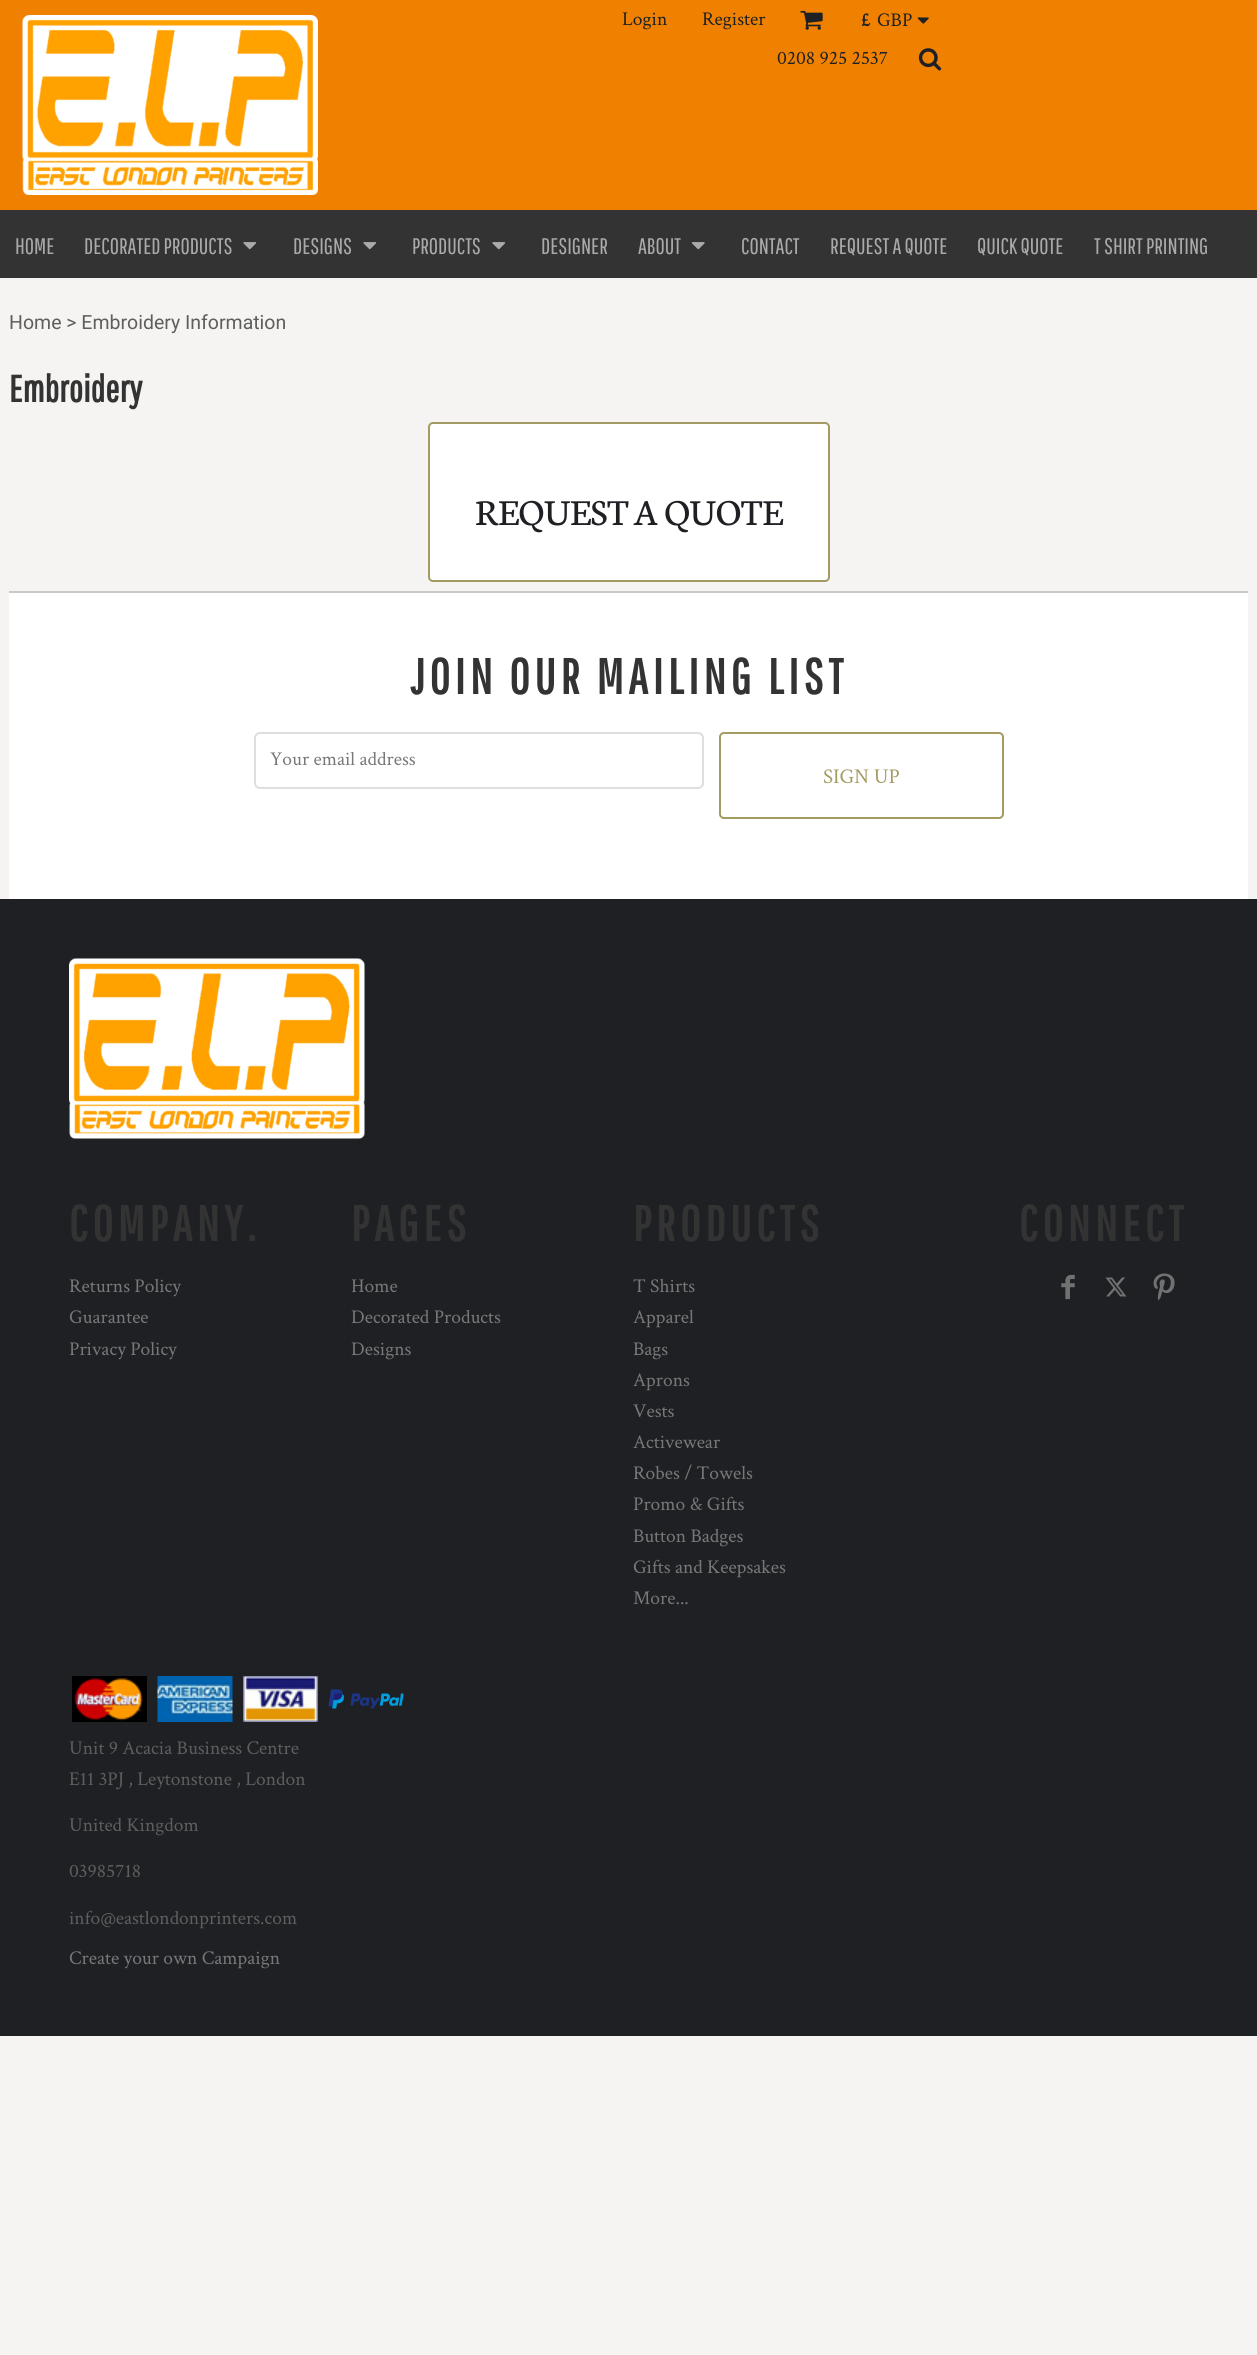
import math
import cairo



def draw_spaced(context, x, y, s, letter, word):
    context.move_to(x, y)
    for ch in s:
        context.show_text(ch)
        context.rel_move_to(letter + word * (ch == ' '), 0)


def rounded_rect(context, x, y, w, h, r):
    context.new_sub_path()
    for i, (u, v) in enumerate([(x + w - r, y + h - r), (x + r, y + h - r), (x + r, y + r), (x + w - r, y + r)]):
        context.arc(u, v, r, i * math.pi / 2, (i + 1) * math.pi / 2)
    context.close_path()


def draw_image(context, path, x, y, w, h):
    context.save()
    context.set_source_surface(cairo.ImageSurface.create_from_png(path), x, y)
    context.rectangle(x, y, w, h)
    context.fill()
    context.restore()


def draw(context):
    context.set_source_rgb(245 / 255, 244 / 255, 242 / 255)
    context.paint()
    context.set_source_rgb(240 / 255, 129 / 255, 0)
    context.rectangle(0, 0, 1257, 210)
    context.fill()
    draw_image(context, "images/1.png", 22, 15, 296, 180)
    draw_image(context, "images/2.png", 800, 10, 23, 20)
    draw_image(context, "images/3.png", 917, 17, 12, 7)
    draw_image(context, "images/4.png", 918, 48, 24, 23)
    context.set_source_rgb(51 / 255, 51 / 255, 51 / 255)
    context.rectangle(0, 210, 1257, 68)
    context.fill()
    draw_image(context, "images/5.png", 243, 242, 14, 8)
    draw_image(context, "images/5.png", 363, 242, 14, 8)
    draw_image(context, "images/5.png", 492, 242, 14, 8)
    draw_image(context, "images/6.png", 691, 242, 14, 8)
    context.set_source_rgb(1, 1, 1)
    rounded_rect(context, 429, 423, 400, 158, 4)
    context.fill_preserve()
    context.set_source_rgb(164 / 255, 155 / 255, 98 / 255)
    context.stroke()
    context.set_source_rgb(1, 1, 1)
    context.rectangle(9, 593, 1239, 306)
    context.fill()
    context.set_source_rgb(200 / 255, 200 / 255, 200 / 255)
    context.rectangle(9, 591, 1239, 2)
    context.fill()
    rounded_rect(context, 255, 733, 448, 55, 5)
    context.set_source_rgb(223 / 255, 221 / 255, 221 / 255)
    context.stroke()
    rounded_rect(context, 720, 733, 283, 85, 4)
    context.set_source_rgb(164 / 255, 155 / 255, 98 / 255)
    context.stroke()
    context.set_source_rgb(30 / 255, 32 / 255, 36 / 255)
    context.rectangle(0, 899, 1257, 1137)
    context.fill()
    draw_image(context, "images/7.png", 69, 958, 296, 181)
    draw_image(context, "images/8.png", 1061, 1274, 14, 26)
    draw_image(context, "images/9.png", 1105, 1277, 22, 20)
    draw_image(context, "images/10.png", 1153, 1273, 22, 28)
    draw_image(context, "images/11.png", 72, 1676, 75, 46)
    draw_image(context, "images/12.png", 157, 1676, 76, 46)
    draw_image(context, "images/13.png", 243, 1676, 75, 46)
    draw_image(context, "images/14.png", 328, 1689, 76, 20)
    context.select_font_face("Crimson Text")
    context.set_font_size(19.5)
    context.move_to(622, 25)
    context.show_text("Login")
    context.move_to(702, 25)
    context.show_text("Register")
    context.select_font_face("Crimson Text", cairo.FontSlant.NORMAL, cairo.FontWeight.BOLD)
    context.move_to(861, 26)
    context.show_text("£")
    context.select_font_face("Crimson Text")
    context.move_to(877, 26)
    context.show_text("GBP")
    context.move_to(777, 64)
    context.show_text("0208 925 2537")
    context.select_font_face("Pathway Gothic One")
    context.set_font_size(22.5)
    context.set_source_rgb(170 / 255, 170 / 255, 170 / 255)
    context.move_to(15, 254)
    context.show_text("HOME")
    context.move_to(84, 254)
    context.show_text("DECORATED PRODUCTS")
    context.move_to(293, 254)
    context.show_text("DESIGNS")
    context.move_to(412, 254)
    context.show_text("PRODUCTS")
    context.move_to(541, 254)
    context.show_text("DESIGNER")
    context.move_to(638, 254)
    context.show_text("ABOUT")
    context.move_to(741, 254)
    context.show_text("CONTACT")
    context.move_to(830, 254)
    context.show_text("REQUEST A QUOTE")
    context.move_to(977, 254)
    context.show_text("QUICK QUOTE")
    context.move_to(1094, 254)
    context.show_text("T SHIRT PRINTING")
    context.select_font_face("Roboto")
    context.set_font_size(19.5)
    context.set_source_rgb(94 / 255, 94 / 255, 94 / 255)
    context.move_to(9, 329)
    context.show_text("Home > Embroidery Information")
    context.select_font_face("Pathway Gothic One", cairo.FontSlant.NORMAL, cairo.FontWeight.BOLD)
    context.set_font_size(37.5)
    context.set_source_rgb(51 / 255, 51 / 255, 51 / 255)
    context.move_to(9, 402)
    context.show_text("Embroidery")
    context.select_font_face("Neuton")
    context.set_font_size(39)
    context.set_source_rgb(30 / 255, 32 / 255, 36 / 255)
    context.move_to(475, 525)
    context.show_text("REQUEST A QUOTE")
    context.select_font_face("Pathway Gothic One", cairo.FontSlant.NORMAL, cairo.FontWeight.BOLD)
    context.set_font_size(49.5)
    context.set_source_rgb(51 / 255, 51 / 255, 51 / 255)
    draw_spaced(context, 410, 694, "JOIN OUR MAILING LIST", 4.95, 0)
    context.select_font_face("Crimson Text")
    context.set_font_size(19.5)
    context.set_source_rgb(120 / 255, 120 / 255, 120 / 255)
    context.move_to(270, 765)
    context.show_text("Your email address")
    context.set_font_size(21)
    context.set_source_rgb(164 / 255, 155 / 255, 98 / 255)
    context.move_to(823, 783)
    context.show_text("SIGN UP")
    context.select_font_face("Pathway Gothic One", cairo.FontSlant.NORMAL, cairo.FontWeight.BOLD)
    context.set_font_size(49.5)
    context.set_source_rgb(51 / 255, 51 / 255, 51 / 255)
    draw_spaced(context, 69, 1241, "COMPANY.", 4.95, 0)
    context.select_font_face("Crimson Text")
    context.set_font_size(19.5)
    context.set_source_rgb(120 / 255, 120 / 255, 120 / 255)
    context.move_to(69, 1292)
    context.show_text("Returns Policy")
    context.move_to(69, 1323)
    context.show_text("Guarantee")
    context.move_to(69, 1355)
    context.show_text("Privacy Policy")
    context.select_font_face("Pathway Gothic One", cairo.FontSlant.NORMAL, cairo.FontWeight.BOLD)
    context.set_font_size(49.5)
    context.set_source_rgb(51 / 255, 51 / 255, 51 / 255)
    draw_spaced(context, 351, 1241, "PAGES", 4.95, 0)
    context.select_font_face("Crimson Text")
    context.set_font_size(19.5)
    context.set_source_rgb(120 / 255, 120 / 255, 120 / 255)
    context.move_to(351, 1292)
    context.show_text("Home")
    context.move_to(351, 1323)
    context.show_text("Decorated Products")
    context.move_to(351, 1355)
    context.show_text("Designs")
    context.select_font_face("Pathway Gothic One", cairo.FontSlant.NORMAL, cairo.FontWeight.BOLD)
    context.set_font_size(49.5)
    context.set_source_rgb(51 / 255, 51 / 255, 51 / 255)
    draw_spaced(context, 633, 1241, "PRODUCTS", 4.95, 0)
    context.select_font_face("Crimson Text")
    context.set_font_size(19.5)
    context.set_source_rgb(120 / 255, 120 / 255, 120 / 255)
    context.move_to(633, 1292)
    context.show_text("T Shirts")
    context.move_to(633, 1323)
    context.show_text("Apparel")
    context.move_to(633, 1355)
    context.show_text("Bags")
    context.move_to(633, 1386)
    context.show_text("Aprons")
    context.move_to(633, 1417)
    context.show_text("Vests")
    context.move_to(633, 1448)
    context.show_text("Activewear")
    context.move_to(633, 1479)
    context.show_text("Robes / Towels")
    context.move_to(633, 1510)
    context.show_text("Promo & Gifts")
    context.move_to(633, 1542)
    context.show_text("Button Badges")
    context.move_to(633, 1573)
    context.show_text("Gifts and Keepsakes")
    context.move_to(633, 1604)
    context.show_text("More...")
    context.select_font_face("Pathway Gothic One", cairo.FontSlant.NORMAL, cairo.FontWeight.BOLD)
    context.set_font_size(49.5)
    context.set_source_rgb(51 / 255, 51 / 255, 51 / 255)
    draw_spaced(context, 1019, 1241, "CONNECT", 4.95, 0)
    context.select_font_face("Crimson Text")
    context.set_font_size(19.5)
    context.set_source_rgb(94 / 255, 94 / 255, 94 / 255)
    context.move_to(69, 1754)
    context.show_text("Unit 9 Acacia Business Centre")
    context.move_to(69, 1785)
    context.show_text("E11 3PJ , Leytonstone , London")
    context.move_to(69, 1831)
    context.show_text("United Kingdom")
    context.move_to(69, 1877)
    context.show_text("03985718")
    context.move_to(69, 1924)
    context.show_text("info@eastlondonprinters.com")
    context.set_source_rgb(120 / 255, 120 / 255, 120 / 255)
    context.move_to(69, 1964)
    context.show_text("Create your own Campaign")


surface = cairo.ImageSurface(cairo.Format.RGB24, 1257, 2355)
context = cairo.Context(surface)
options = cairo.FontOptions()
options.set_hint_metrics(cairo.HintMetrics.OFF)
options.set_hint_style(cairo.HintStyle.NONE)
context.set_font_options(options)
context.set_miter_limit(4)
draw(context)
surface.write_to_png("out.png")
